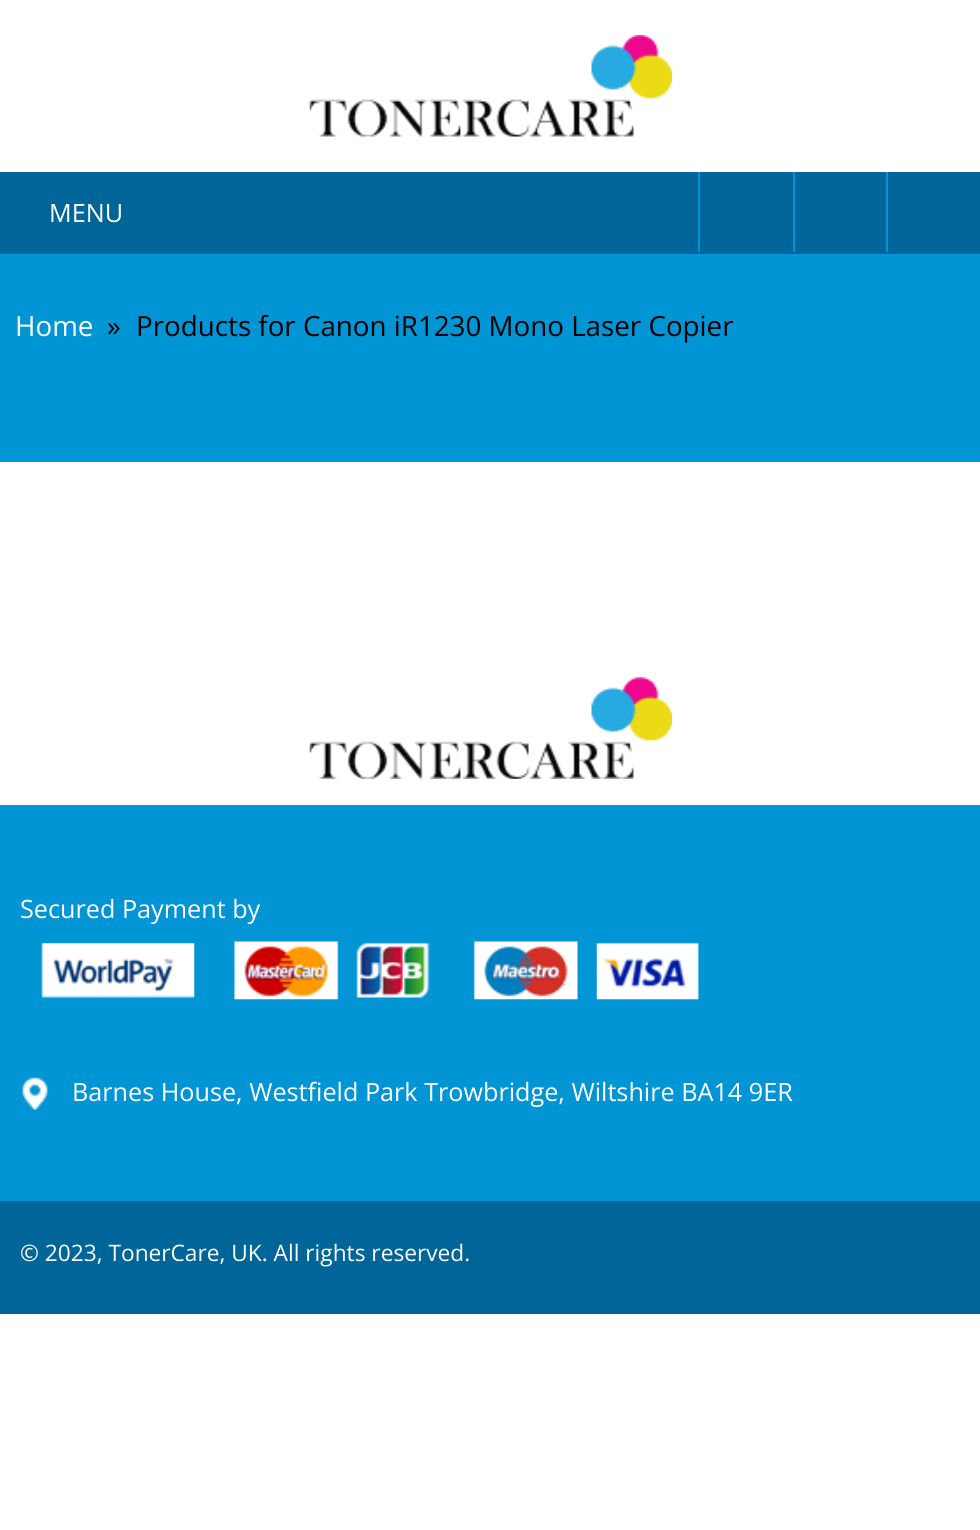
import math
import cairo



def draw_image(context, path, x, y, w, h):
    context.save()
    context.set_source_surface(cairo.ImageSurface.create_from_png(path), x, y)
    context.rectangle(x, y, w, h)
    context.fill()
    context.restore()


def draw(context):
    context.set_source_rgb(1, 1, 1)
    context.paint()
    draw_image(context, "images/1.png", 309, 35, 363, 102)
    context.set_source_rgb(0, 101 / 255, 153 / 255)
    context.rectangle(0, 172, 980, 82)
    context.fill()
    context.set_source_rgb(1 / 255, 149 / 255, 213 / 255)
    context.rectangle(793, 172, 2, 80)
    context.fill()
    context.rectangle(698, 172, 2, 80)
    context.fill()
    context.rectangle(886, 172, 2, 80)
    context.fill()
    context.rectangle(0, 254, 980, 208)
    context.fill()
    context.rectangle(0, 805, 980, 396)
    context.fill()
    draw_image(context, "images/2.png", 309, 677, 363, 102)
    draw_image(context, "images/3.png", 41, 943, 154, 55)
    draw_image(context, "images/4.png", 234, 941, 105, 59)
    draw_image(context, "images/5.png", 356, 942, 74, 56)
    draw_image(context, "images/6.png", 473, 941, 105, 59)
    draw_image(context, "images/7.png", 596, 942, 103, 58)
    draw_image(context, "images/8.png", 22, 1077, 26, 33)
    context.set_source_rgb(0, 101 / 255, 153 / 255)
    context.rectangle(0, 1201, 980, 113)
    context.fill()
    context.select_font_face("Open Sans")
    context.set_font_size(25.2)
    context.set_source_rgb(1, 1, 1)
    context.move_to(49, 222)
    context.show_text("MENU")
    context.set_font_size(27.75)
    context.move_to(15, 336)
    context.show_text("Home")
    context.set_source_rgb(0, 0, 0)
    context.move_to(107, 336)
    context.show_text("»")
    context.move_to(136, 336)
    context.show_text("Products for Canon iR1230 Mono Laser Copier")
    context.set_font_size(25.2)
    context.set_source_rgb(1, 1, 1)
    context.move_to(20, 918)
    context.show_text("Secured Payment by")
    context.move_to(72, 1101)
    context.show_text("Barnes House, Westfield Park Trowbridge, Wiltshire BA14 9ER")
    context.set_font_size(22.7)
    context.move_to(20, 1261)
    context.show_text("© 2023, TonerCare, UK. All rights reserved.")


surface = cairo.ImageSurface(cairo.Format.RGB24, 980, 1530)
context = cairo.Context(surface)
options = cairo.FontOptions()
options.set_hint_metrics(cairo.HintMetrics.OFF)
options.set_hint_style(cairo.HintStyle.NONE)
context.set_font_options(options)
context.set_miter_limit(4)
draw(context)
surface.write_to_png("out.png")
